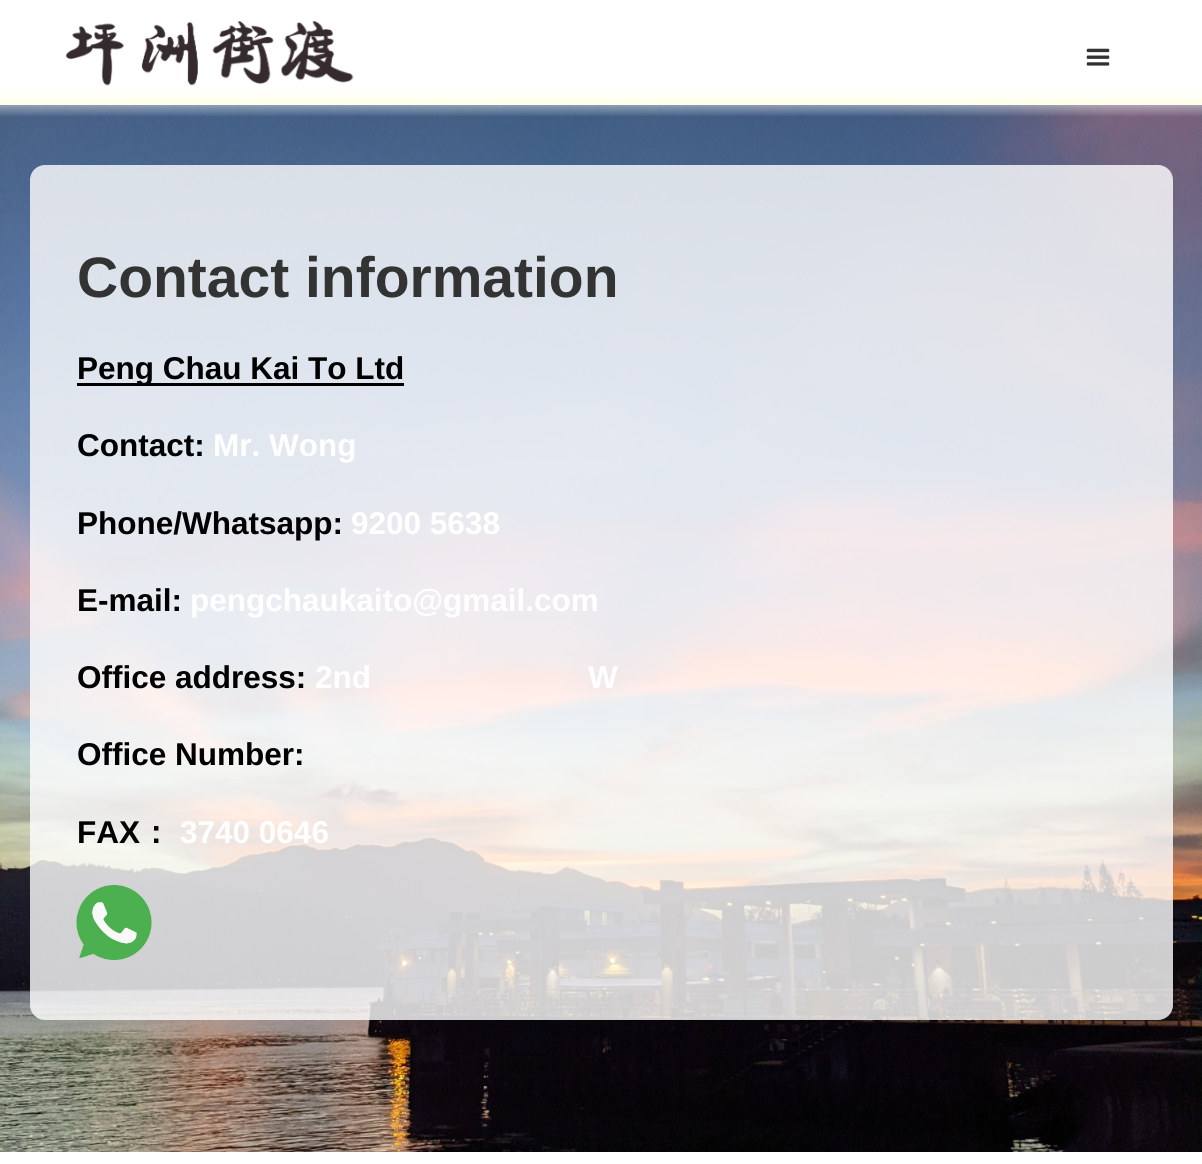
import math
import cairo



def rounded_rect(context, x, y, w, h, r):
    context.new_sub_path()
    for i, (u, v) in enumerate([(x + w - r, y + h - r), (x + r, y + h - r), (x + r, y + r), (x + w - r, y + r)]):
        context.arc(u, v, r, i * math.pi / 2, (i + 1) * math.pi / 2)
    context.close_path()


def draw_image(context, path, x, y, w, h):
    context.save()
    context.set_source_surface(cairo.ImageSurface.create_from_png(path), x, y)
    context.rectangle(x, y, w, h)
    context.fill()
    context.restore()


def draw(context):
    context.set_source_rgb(1, 1, 219 / 255)
    context.paint()
    draw_image(context, "images/3.png", 0, 105, 1202, 1047)
    gradient = cairo.LinearGradient(602, 117, 602, 0)
    gradient.add_color_stop_rgba(0, 1, 1, 1, 0)
    gradient.add_color_stop_rgba(0.25, 1, 1, 1, 1)
    context.set_source(gradient)
    context.rectangle(0, 0, 1202, 116)
    context.fill()
    draw_image(context, "images/1.png", 66, 21, 288, 65)
    draw_image(context, "images/2.png", 1086, 48, 24, 18)
    context.set_source_rgba(1, 1, 1, 0.8)
    rounded_rect(context, 30, 165, 1143, 855, 15)
    context.fill()
    context.set_source_rgb(0, 0, 0)
    context.rectangle(77, 383, 327, 3)
    context.fill()
    draw_image(context, "images/4.png", 76, 885, 76, 75)
    context.set_source_rgb(1, 1, 1)
    context.rectangle(0, 1152, 1202, 12)
    context.fill()
    context.select_font_face("Liberation Sans", cairo.FontSlant.NORMAL, cairo.FontWeight.BOLD)
    context.set_font_size(57)
    context.set_source_rgb(51 / 255, 51 / 255, 51 / 255)
    context.move_to(77, 297)
    context.show_text("Contact information")
    context.set_font_size(31.5)
    context.set_source_rgb(0, 0, 0)
    context.move_to(77, 379)
    context.show_text("Peng Chau Kai To Ltd")
    context.move_to(77, 456)
    context.show_text("Contact:")
    context.set_source_rgb(1, 1, 1)
    context.move_to(213, 456)
    context.show_text("Mr. Wong")
    context.set_source_rgb(0, 0, 0)
    context.move_to(77, 534)
    context.show_text("Phone/Whatsapp:")
    context.set_source_rgb(1, 1, 1)
    context.move_to(351, 534)
    context.show_text("9200 5638")
    context.set_source_rgb(0, 0, 0)
    context.move_to(77, 611)
    context.show_text("E-mail:")
    context.set_source_rgb(1, 1, 1)
    context.move_to(190, 611)
    context.show_text("pengchaukaito@gmail.com")
    context.set_source_rgb(0, 0, 0)
    context.move_to(77, 688)
    context.show_text("Office address:")
    context.set_source_rgb(1, 1, 1)
    context.move_to(315, 688)
    context.show_text("2nd")
    context.move_to(588, 688)
    context.show_text("W")
    context.set_source_rgb(0, 0, 0)
    context.move_to(77, 765)
    context.show_text("Office Number:")
    context.move_to(77, 843)
    context.show_text("FAX")
    context.select_font_face("WenQuanYi Zen Hei", cairo.FontSlant.NORMAL, cairo.FontWeight.BOLD)
    context.move_to(140, 843)
    context.show_text("：")
    context.select_font_face("Liberation Sans", cairo.FontSlant.NORMAL, cairo.FontWeight.BOLD)
    context.set_source_rgb(1, 1, 1)
    context.move_to(180, 843)
    context.show_text("3740 0646")


surface = cairo.ImageSurface(cairo.Format.RGB24, 1202, 1164)
context = cairo.Context(surface)
options = cairo.FontOptions()
options.set_hint_metrics(cairo.HintMetrics.OFF)
options.set_hint_style(cairo.HintStyle.NONE)
context.set_font_options(options)
context.set_miter_limit(4)
draw(context)
surface.write_to_png("out.png")
